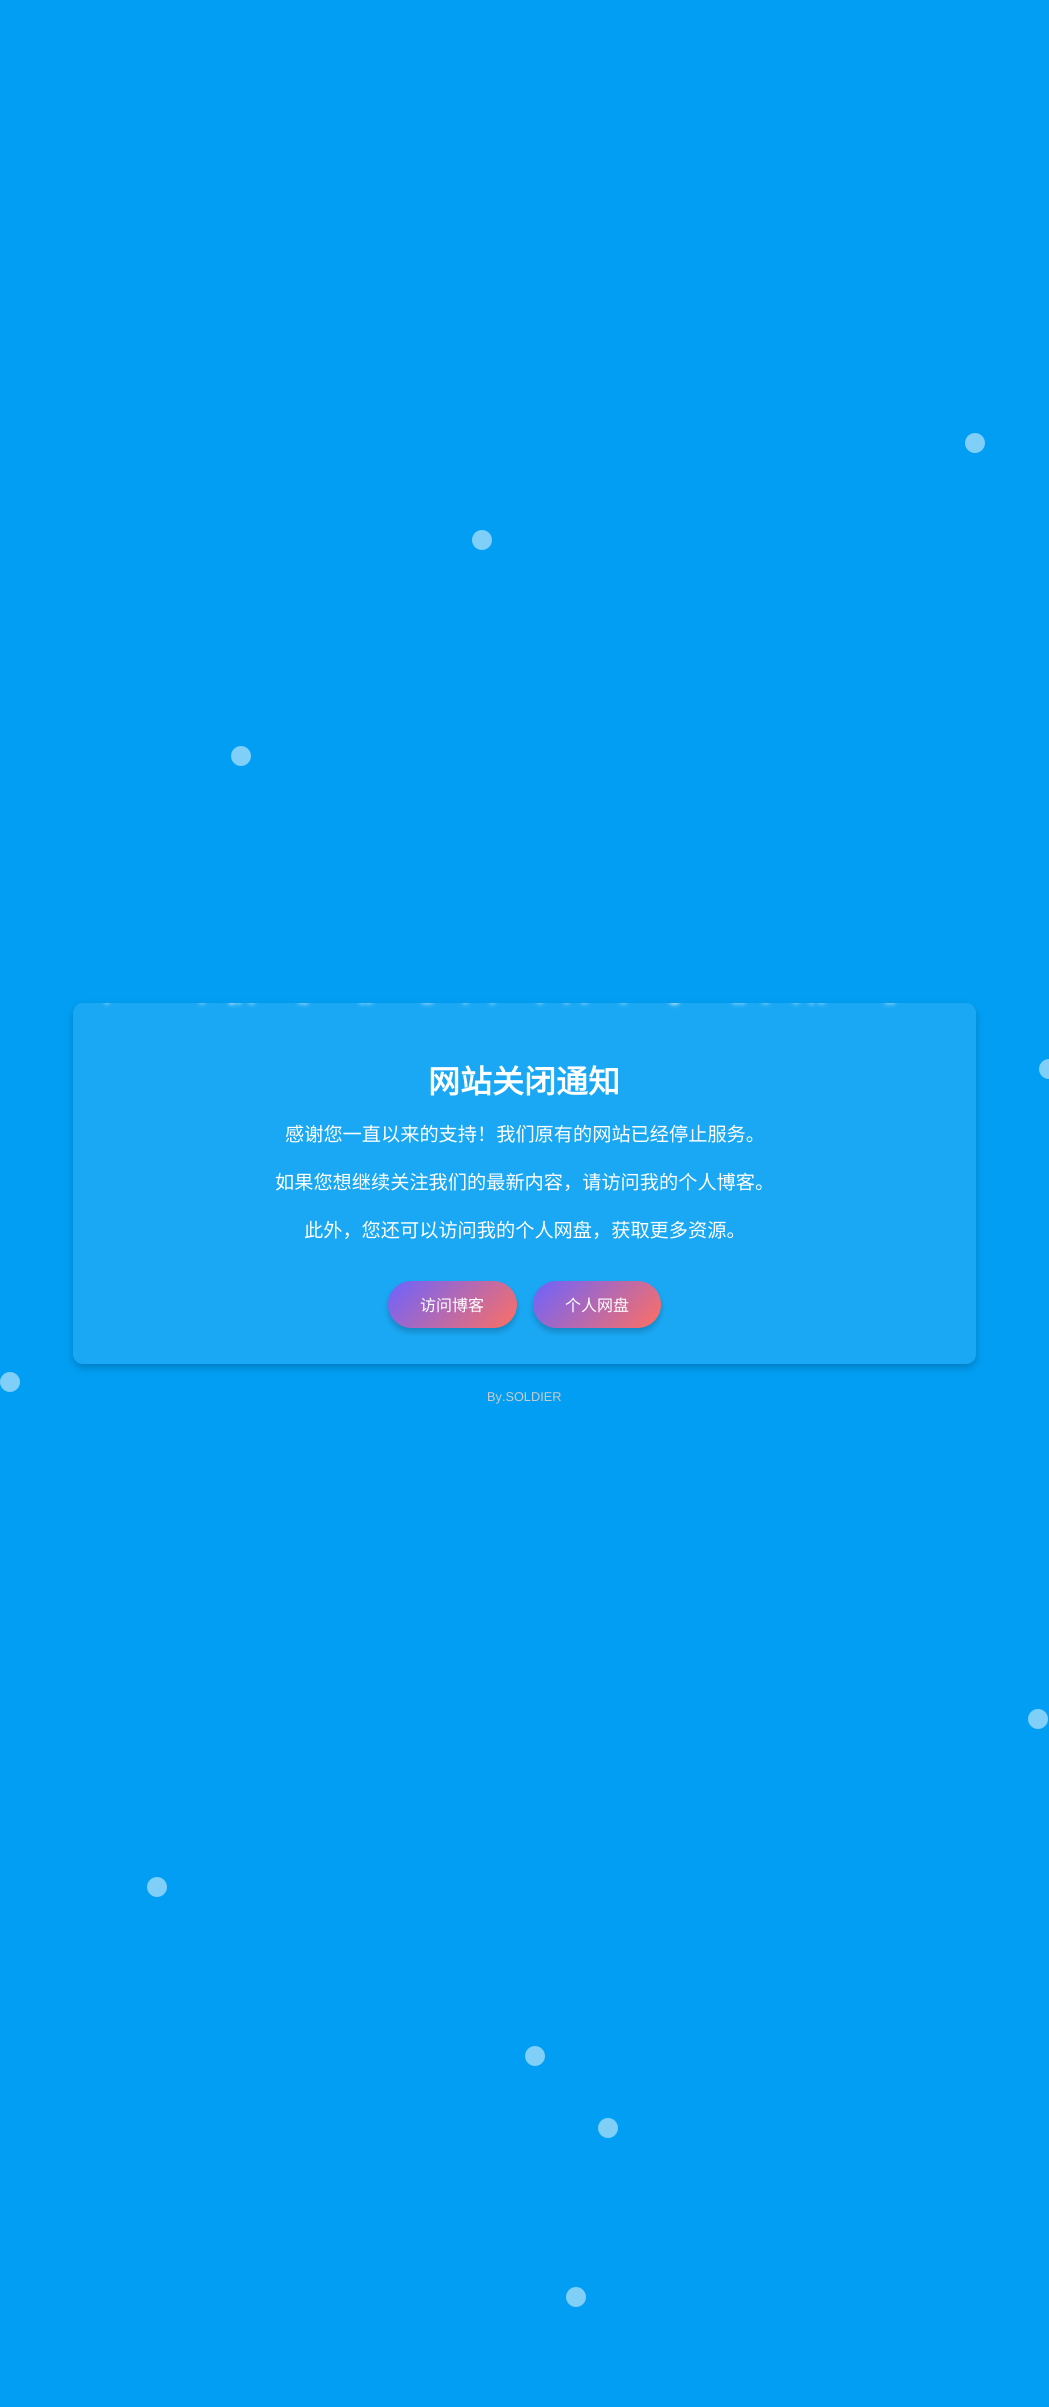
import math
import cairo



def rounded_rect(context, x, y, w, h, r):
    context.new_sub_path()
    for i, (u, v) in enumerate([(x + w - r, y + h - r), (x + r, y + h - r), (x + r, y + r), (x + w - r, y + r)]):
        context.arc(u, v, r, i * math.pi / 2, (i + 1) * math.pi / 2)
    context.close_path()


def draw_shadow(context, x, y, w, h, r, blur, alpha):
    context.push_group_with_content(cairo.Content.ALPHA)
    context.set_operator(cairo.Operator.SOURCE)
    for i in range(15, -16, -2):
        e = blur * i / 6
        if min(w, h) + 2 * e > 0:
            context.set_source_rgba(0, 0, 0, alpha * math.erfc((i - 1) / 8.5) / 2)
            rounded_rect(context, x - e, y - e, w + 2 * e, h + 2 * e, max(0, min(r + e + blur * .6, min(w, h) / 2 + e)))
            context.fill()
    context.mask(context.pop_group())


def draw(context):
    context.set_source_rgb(1 / 255, 158 / 255, 243 / 255)
    context.paint()
    context.set_source_rgb(128 / 255, 207 / 255, 249 / 255)
    context.arc(975, 443, 10, 0, 2 * math.pi)
    context.fill()
    context.arc(482, 540, 10, 0, 2 * math.pi)
    context.fill()
    context.arc(241, 756, 10, 0, 2 * math.pi)
    context.fill()
    context.arc(1049, 1069, 10, 0, 2 * math.pi)
    context.fill()
    context.arc(10, 1382, 10, 0, 2 * math.pi)
    context.fill()
    context.arc(1038, 1719, 10, 0, 2 * math.pi)
    context.fill()
    context.arc(157, 1887, 10, 0, 2 * math.pi)
    context.fill()
    context.arc(535, 2056, 10, 0, 2 * math.pi)
    context.fill()
    context.arc(608, 2128, 10, 0, 2 * math.pi)
    context.fill()
    context.arc(576, 2297, 10, 0, 2 * math.pi)
    context.fill()
    context.save()
    context.set_fill_rule(cairo.FillRule.EVEN_ODD)
    context.new_path()
    context.move_to(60, 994)
    context.line_to(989, 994)
    context.line_to(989, 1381)
    context.line_to(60, 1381)
    context.close_path()
    context.move_to(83, 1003)
    context.line_to(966, 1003)
    context.curve_to(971.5, 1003, 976, 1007.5, 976, 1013)
    context.line_to(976, 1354)
    context.curve_to(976, 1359.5, 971.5, 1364, 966, 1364)
    context.line_to(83, 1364)
    context.curve_to(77.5, 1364, 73, 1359.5, 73, 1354)
    context.line_to(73, 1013)
    context.curve_to(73, 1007.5, 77.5, 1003, 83, 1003)
    context.close_path()
    context.clip()
    context.set_source_rgb(0, 0, 0)
    draw_shadow(context, 73, 1007, 903, 361, 10, 4, 0.2)
    context.restore()
    context.set_source_rgba(1, 1, 1, 0.1)
    rounded_rect(context, 73, 1003, 903, 361, 10)
    context.fill()
    context.save()
    rounded_rect(context, 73, 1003, 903, 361, 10)
    context.clip()
    context.set_source_rgb(209 / 255, 238 / 255, 253 / 255)
    draw_shadow(context, 427, 997, 6, 6, 3, 2.5, 0.8)
    draw_shadow(context, 733, 997, 5, 6, 2.5, 2.5, 0.8)
    draw_shadow(context, 200, 999, 4, 4, 2, 2.5, 0.8)
    draw_shadow(context, 231, 999, 4, 4, 2, 2.5, 0.8)
    draw_shadow(context, 249, 998, 5, 5, 2.5, 2.5, 0.8)
    draw_shadow(context, 299, 998, 5, 5, 2.5, 2.5, 0.8)
    draw_shadow(context, 360, 998, 5, 5, 2.5, 2.5, 0.8)
    context.set_source_rgb(1, 1, 1)
    draw_shadow(context, 423, 999, 4, 4, 2, 2.5, 0.64)
    context.set_source_rgb(209 / 255, 238 / 255, 253 / 255)
    draw_shadow(context, 538, 998, 4, 5, 2, 2.5, 0.8)
    draw_shadow(context, 582, 998, 5, 5, 2.5, 2.5, 0.8)
    draw_shadow(context, 621, 998, 5, 5, 2.5, 2.5, 0.8)
    context.set_source_rgb(1, 1, 1)
    draw_shadow(context, 670, 998, 5, 5, 2.5, 2.5, 0.64)
    draw_shadow(context, 739, 997, 6, 6, 3, 2.5, 0.64)
    context.set_source_rgb(209 / 255, 238 / 255, 253 / 255)
    draw_shadow(context, 763, 998, 5, 5, 2.5, 2.5, 0.8)
    draw_shadow(context, 819, 998, 5, 5, 2.5, 2.5, 0.8)
    draw_shadow(context, 106, 1000, 2, 3, 1, 2.5, 0.8)
    context.set_source_rgb(1, 1, 1)
    draw_shadow(context, 230, 1000, 2, 3, 1, 2.5, 0.64)
    context.set_source_rgb(209 / 255, 238 / 255, 253 / 255)
    draw_shadow(context, 672, 999, 4, 4, 2, 2.5, 0.8)
    draw_shadow(context, 794, 999, 4, 4, 2, 2.5, 0.8)
    context.set_source_rgb(1, 1, 1)
    draw_shadow(context, 238, 1000, 2, 3, 1, 2.5, 0.64)
    draw_shadow(context, 305, 1000, 2, 3, 1, 2.5, 0.64)
    draw_shadow(context, 368, 1000, 3, 3, 1.5, 2.5, 0.64)
    context.set_source_rgb(209 / 255, 238 / 255, 253 / 255)
    draw_shadow(context, 464, 1000, 3, 3, 1.5, 2.5, 0.8)
    draw_shadow(context, 491, 1000, 3, 3, 1.5, 2.5, 0.8)
    draw_shadow(context, 565, 1000, 3, 3, 1.5, 2.5, 0.8)
    context.set_source_rgb(1, 1, 1)
    draw_shadow(context, 676, 1000, 2, 3, 1, 2.5, 0.64)
    draw_shadow(context, 810, 1000, 3, 3, 1.5, 2.5, 0.64)
    context.set_source_rgb(209 / 255, 238 / 255, 253 / 255)
    draw_shadow(context, 886, 1000, 3, 3, 1.5, 2.5, 0.8)
    context.set_source_rgb(1, 1, 1)
    draw_shadow(context, 891, 1000, 3, 3, 1.5, 2.5, 0.64)
    context.restore()
    context.set_source_rgb(0, 0, 0)
    draw_shadow(context, 388, 1285, 129, 47, 23.5, 3, 0.2)
    gradient = cairo.LinearGradient(409, 1261, 497, 1349)
    gradient.add_color_stop_rgba(0, 108 / 255, 99 / 255, 1, 1)
    gradient.add_color_stop_rgba(1, 1, 111 / 255, 97 / 255, 1)
    context.set_source(gradient)
    rounded_rect(context, 388, 1281, 129, 47, 23.5)
    context.fill()
    context.set_source_rgb(0, 0, 0)
    draw_shadow(context, 533, 1285, 128, 47, 23.5, 3, 0.2)
    gradient = cairo.LinearGradient(553, 1261, 641, 1348)
    gradient.add_color_stop_rgba(0, 108 / 255, 99 / 255, 1, 1)
    gradient.add_color_stop_rgba(1, 1, 111 / 255, 97 / 255, 1)
    context.set_source(gradient)
    rounded_rect(context, 533, 1281, 128, 47, 23.5)
    context.fill()
    context.select_font_face("Noto Sans CJK SC", cairo.FontSlant.NORMAL, cairo.FontWeight.BOLD)
    context.set_font_size(32)
    context.set_source_rgb(1, 1, 1)
    context.move_to(428, 1093)
    context.show_text("网站关闭通知")
    context.select_font_face("Noto Sans CJK SC")
    context.set_font_size(19.2)
    context.move_to(285, 1141)
    context.show_text("感谢您一直以来的支持！我们原有的网站已经停止服务。")
    context.move_to(275, 1189)
    context.show_text("如果您想继续关注我们的最新内容，请访问我的个人博客。")
    context.move_to(304, 1237)
    context.show_text("此外，您还可以访问我的个人网盘，获取更多资源。")
    context.set_font_size(16)
    context.move_to(420, 1311)
    context.show_text("访问博客")
    context.move_to(565, 1311)
    context.show_text("个人网盘")
    context.select_font_face("Liberation Sans")
    context.set_font_size(12.75)
    context.set_source_rgb(204 / 255, 204 / 255, 204 / 255)
    context.move_to(487, 1401)
    context.show_text("By.SOLDIER")


surface = cairo.ImageSurface(cairo.Format.RGB24, 1049, 2407)
context = cairo.Context(surface)
options = cairo.FontOptions()
options.set_hint_metrics(cairo.HintMetrics.OFF)
options.set_hint_style(cairo.HintStyle.NONE)
context.set_font_options(options)
context.set_miter_limit(4)
draw(context)
surface.write_to_png("out.png")
